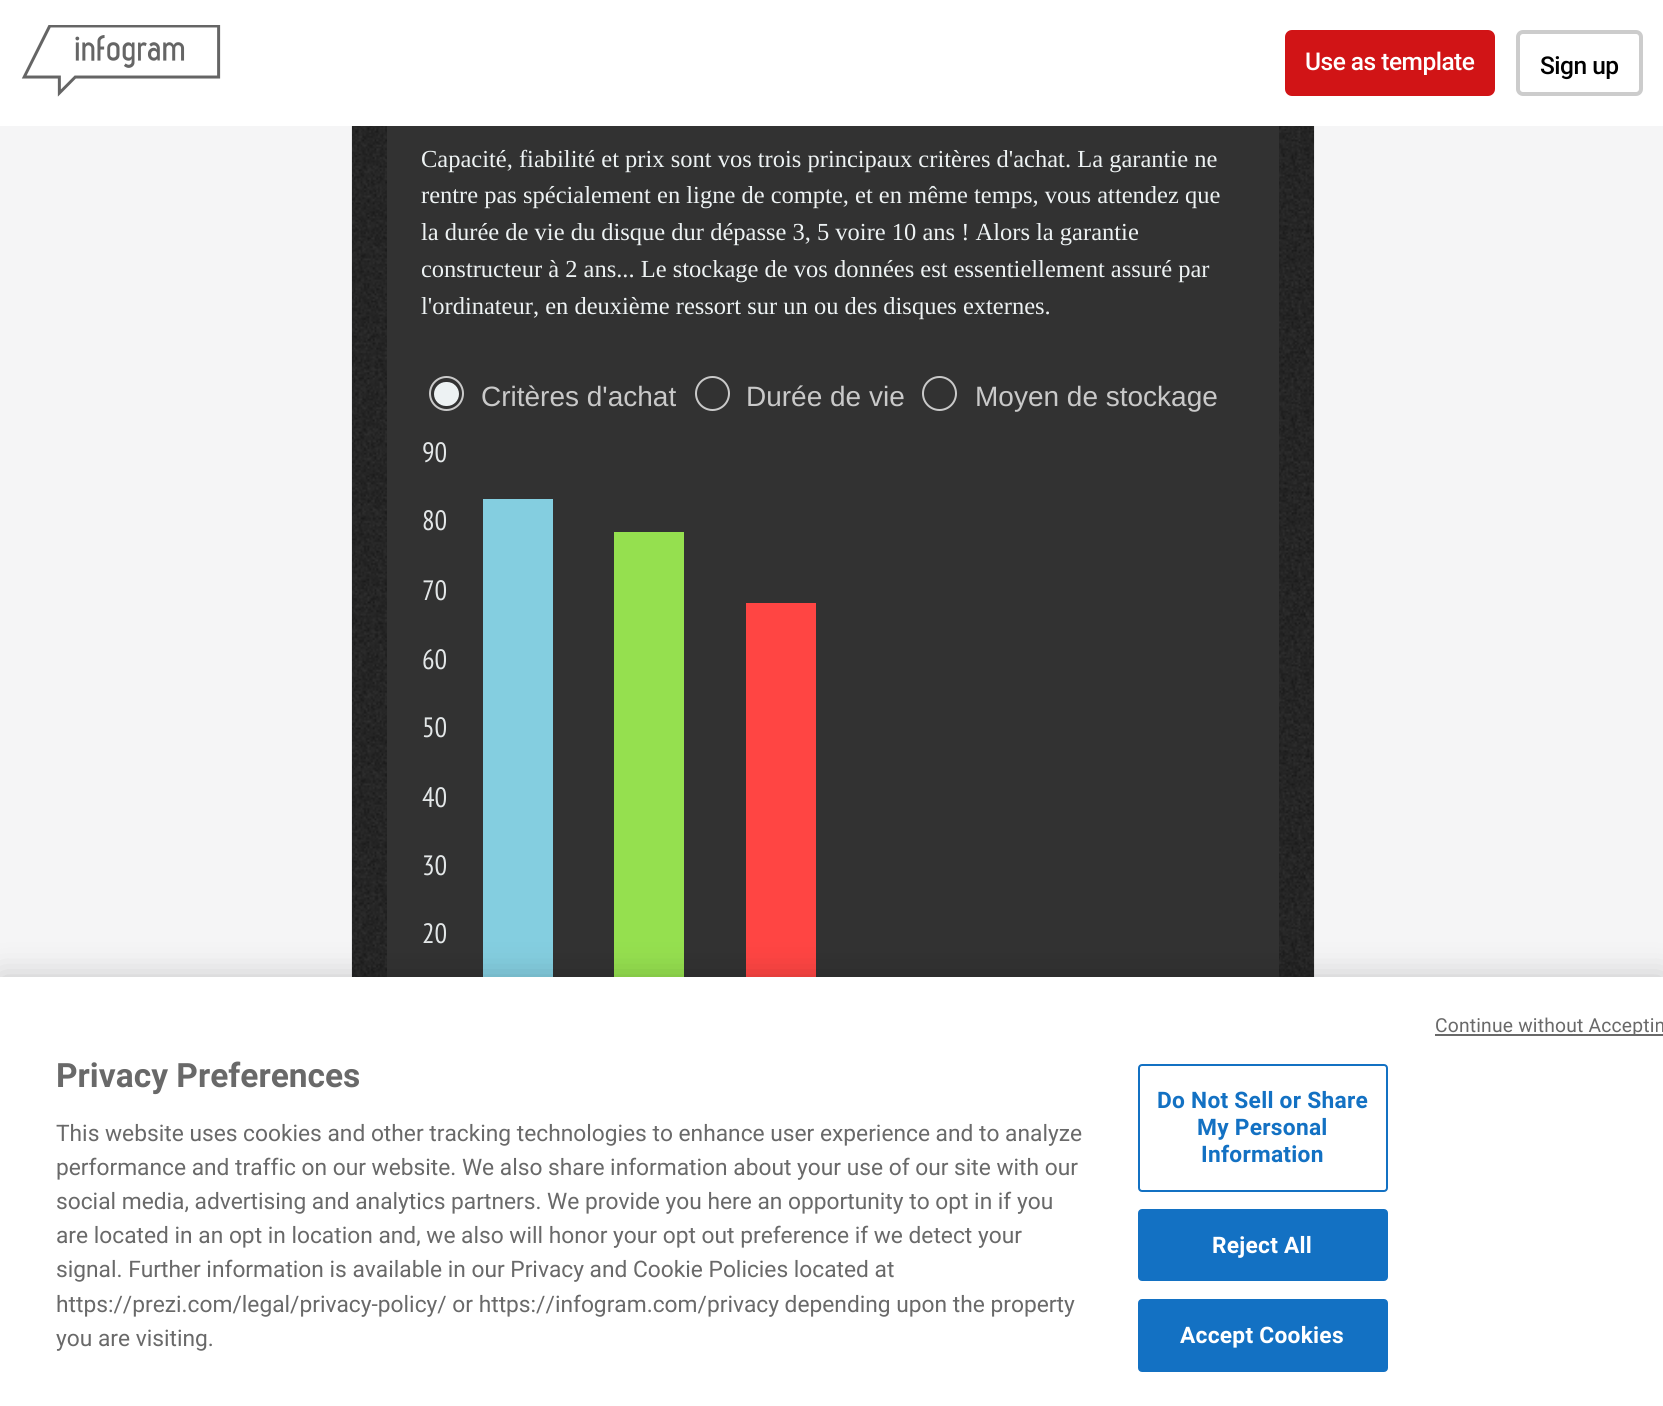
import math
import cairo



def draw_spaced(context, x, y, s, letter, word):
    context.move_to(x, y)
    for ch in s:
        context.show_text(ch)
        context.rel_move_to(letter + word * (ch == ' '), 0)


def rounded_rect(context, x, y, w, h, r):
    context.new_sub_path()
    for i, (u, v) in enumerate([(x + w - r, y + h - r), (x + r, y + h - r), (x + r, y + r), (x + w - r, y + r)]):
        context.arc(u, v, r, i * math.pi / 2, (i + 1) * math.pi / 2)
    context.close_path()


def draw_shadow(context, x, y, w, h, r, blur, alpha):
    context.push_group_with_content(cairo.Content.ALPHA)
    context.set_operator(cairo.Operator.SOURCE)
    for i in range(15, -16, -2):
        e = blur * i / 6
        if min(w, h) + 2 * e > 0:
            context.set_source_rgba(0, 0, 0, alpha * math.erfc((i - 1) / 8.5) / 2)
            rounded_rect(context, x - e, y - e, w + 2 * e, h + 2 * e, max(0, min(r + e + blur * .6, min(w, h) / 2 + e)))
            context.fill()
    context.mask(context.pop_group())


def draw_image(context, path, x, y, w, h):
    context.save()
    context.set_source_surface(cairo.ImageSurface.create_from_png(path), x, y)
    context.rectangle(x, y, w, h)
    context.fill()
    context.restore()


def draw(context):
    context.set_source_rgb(245 / 255, 245 / 255, 246 / 255)
    context.paint()
    context.set_source_rgb(1, 1, 1)
    context.rectangle(0, 0, 1663, 126)
    context.fill()
    draw_image(context, "images/1.png", 21, 25, 200, 72)
    context.set_source_rgb(209 / 255, 20 / 255, 22 / 255)
    rounded_rect(context, 1285, 30, 210, 66, 7)
    context.fill()
    rounded_rect(context, 1518, 32, 123, 62, 5)
    context.set_source_rgb(204 / 255, 204 / 255, 204 / 255)
    context.set_line_width(4)
    context.stroke()
    draw_image(context, "images/2.png", 351, 126, 964, 851)
    context.set_source_rgb(50 / 255, 50 / 255, 50 / 255)
    context.rectangle(387, 126, 892, 851)
    context.fill()
    context.arc(446.5, 393.5, 16.5, 0, 2 * math.pi)
    context.set_source_rgb(201 / 255, 201 / 255, 201 / 255)
    context.set_line_width(2)
    context.stroke()
    context.set_source_rgb(237 / 255, 242 / 255, 243 / 255)
    rounded_rect(context, 434, 382, 25, 24, 12)
    context.fill()
    context.arc(712.5, 393.5, 16.5, 0, 2 * math.pi)
    context.set_source_rgb(201 / 255, 201 / 255, 201 / 255)
    context.stroke()
    context.arc(939.5, 393.5, 16.5, 0, 2 * math.pi)
    context.stroke()
    context.set_source_rgb(132 / 255, 206 / 255, 224 / 255)
    context.rectangle(483, 499, 70, 478)
    context.fill()
    context.set_source_rgb(149 / 255, 224 / 255, 79 / 255)
    context.rectangle(614, 532, 70, 445)
    context.fill()
    context.set_source_rgb(1, 69 / 255, 67 / 255)
    context.rectangle(746, 603, 70, 374)
    context.fill()
    context.set_source_rgb(0, 0, 0)
    draw_shadow(context, 0, 977, 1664, 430, 0, 16, 0.2)
    context.set_source_rgb(1, 1, 1)
    context.rectangle(0, 977, 1663, 429)
    context.fill()
    context.set_source_rgb(105 / 255, 105 / 255, 105 / 255)
    context.rectangle(1435, 1034, 228, 2)
    context.fill()
    rounded_rect(context, 1139, 1065, 248, 126, 3)
    context.set_source_rgb(19 / 255, 113 / 255, 195 / 255)
    context.stroke()
    rounded_rect(context, 1139, 1210, 248, 70, 3)
    context.fill_preserve()
    context.stroke()
    rounded_rect(context, 1139, 1300, 248, 71, 3)
    context.fill_preserve()
    context.stroke()
    context.select_font_face("Roboto Medium")
    context.set_font_size(24.5)
    context.set_source_rgb(1, 1, 1)
    draw_spaced(context, 1305, 70, "Use as template", -0.5, 0)
    context.set_source_rgb(0, 0, 0)
    draw_spaced(context, 1540, 74, "Sign up", -0.5, 0)
    context.select_font_face("Liberation Serif")
    context.set_source_rgb(237 / 255, 242 / 255, 243 / 255)
    context.move_to(421, 167)
    context.show_text("Capacité, fiabilité et prix sont vos trois principaux critères d'achat. La garantie ne")
    context.move_to(421, 203)
    context.show_text("rentre pas spécialement en ligne de compte, et en même temps, vous attendez que")
    context.move_to(421, 240)
    context.show_text("la durée de vie du disque dur dépasse 3, 5 voire 10 ans ! Alors la garantie")
    context.move_to(421, 277)
    context.show_text("constructeur à 2 ans... Le stockage de vos données est essentiellement assuré par")
    context.move_to(421, 314)
    context.show_text("l'ordinateur, en deuxième ressort sur un ou des disques externes.")
    context.select_font_face("Liberation Sans")
    context.set_font_size(28)
    context.set_source_rgb(201 / 255, 201 / 255, 201 / 255)
    context.move_to(481, 406)
    context.show_text("Critères d'achat")
    context.move_to(746, 406)
    context.show_text("Durée de vie")
    context.move_to(975, 406)
    context.show_text("Moyen de stockage")
    context.select_font_face("PT Sans Narrow")
    context.set_source_rgb(227 / 255, 231 / 255, 232 / 255)
    context.move_to(422, 462)
    context.show_text("90")
    context.move_to(422, 530)
    context.show_text("80")
    context.move_to(422, 600)
    context.show_text("70")
    context.move_to(422, 669)
    context.show_text("60")
    context.move_to(422, 737)
    context.show_text("50")
    context.move_to(422, 807)
    context.show_text("40")
    context.move_to(422, 875)
    context.show_text("30")
    context.move_to(422, 943)
    context.show_text("20")
    context.select_font_face("Roboto")
    context.set_font_size(19.25)
    context.set_source_rgb(105 / 255, 105 / 255, 105 / 255)
    draw_spaced(context, 1435, 1032, "Continue without Acceptin", 0.2, 0)
    context.select_font_face("Roboto", cairo.FontSlant.NORMAL, cairo.FontWeight.BOLD)
    context.set_font_size(33.5)
    context.move_to(56, 1087)
    context.show_text("Privacy Preferences")
    context.select_font_face("Roboto")
    context.set_font_size(22.75)
    context.move_to(56, 1141)
    context.show_text("This website uses cookies and other tracking technologies to enhance user experience and to analyze")
    context.move_to(56, 1175)
    context.show_text("performance and traffic on our website. We also share information about your use of our site with our")
    context.move_to(56, 1209)
    context.show_text("social media, advertising and analytics partners. We provide you here an opportunity to opt in if you")
    context.move_to(56, 1243)
    context.show_text("are located in an opt in location and, we also will honor your opt out preference if we detect your")
    context.move_to(56, 1277)
    context.show_text("signal. Further information is available in our Privacy and Cookie Policies located at")
    context.move_to(56, 1312)
    context.show_text("https://prezi.com/legal/privacy-policy/ or https://infogram.com/privacy depending upon the property")
    context.move_to(56, 1346)
    context.show_text("you are visiting.")
    context.select_font_face("Roboto", cairo.FontSlant.NORMAL, cairo.FontWeight.BOLD)
    context.set_source_rgb(19 / 255, 113 / 255, 195 / 255)
    draw_spaced(context, 1157, 1108, "Do Not Sell or Share", 0.25, 0)
    draw_spaced(context, 1197, 1135, "My Personal", 0.25, 0)
    draw_spaced(context, 1201, 1162, "Information", 0.25, 0)
    context.set_source_rgb(1, 1, 1)
    draw_spaced(context, 1212, 1253, "Reject All", 0.25, 0)
    draw_spaced(context, 1180, 1343, "Accept Cookies", 0.25, 0)


surface = cairo.ImageSurface(cairo.Format.RGB24, 1663, 1406)
context = cairo.Context(surface)
options = cairo.FontOptions()
options.set_hint_metrics(cairo.HintMetrics.OFF)
options.set_hint_style(cairo.HintStyle.NONE)
context.set_font_options(options)
context.set_miter_limit(4)
draw(context)
surface.write_to_png("out.png")
